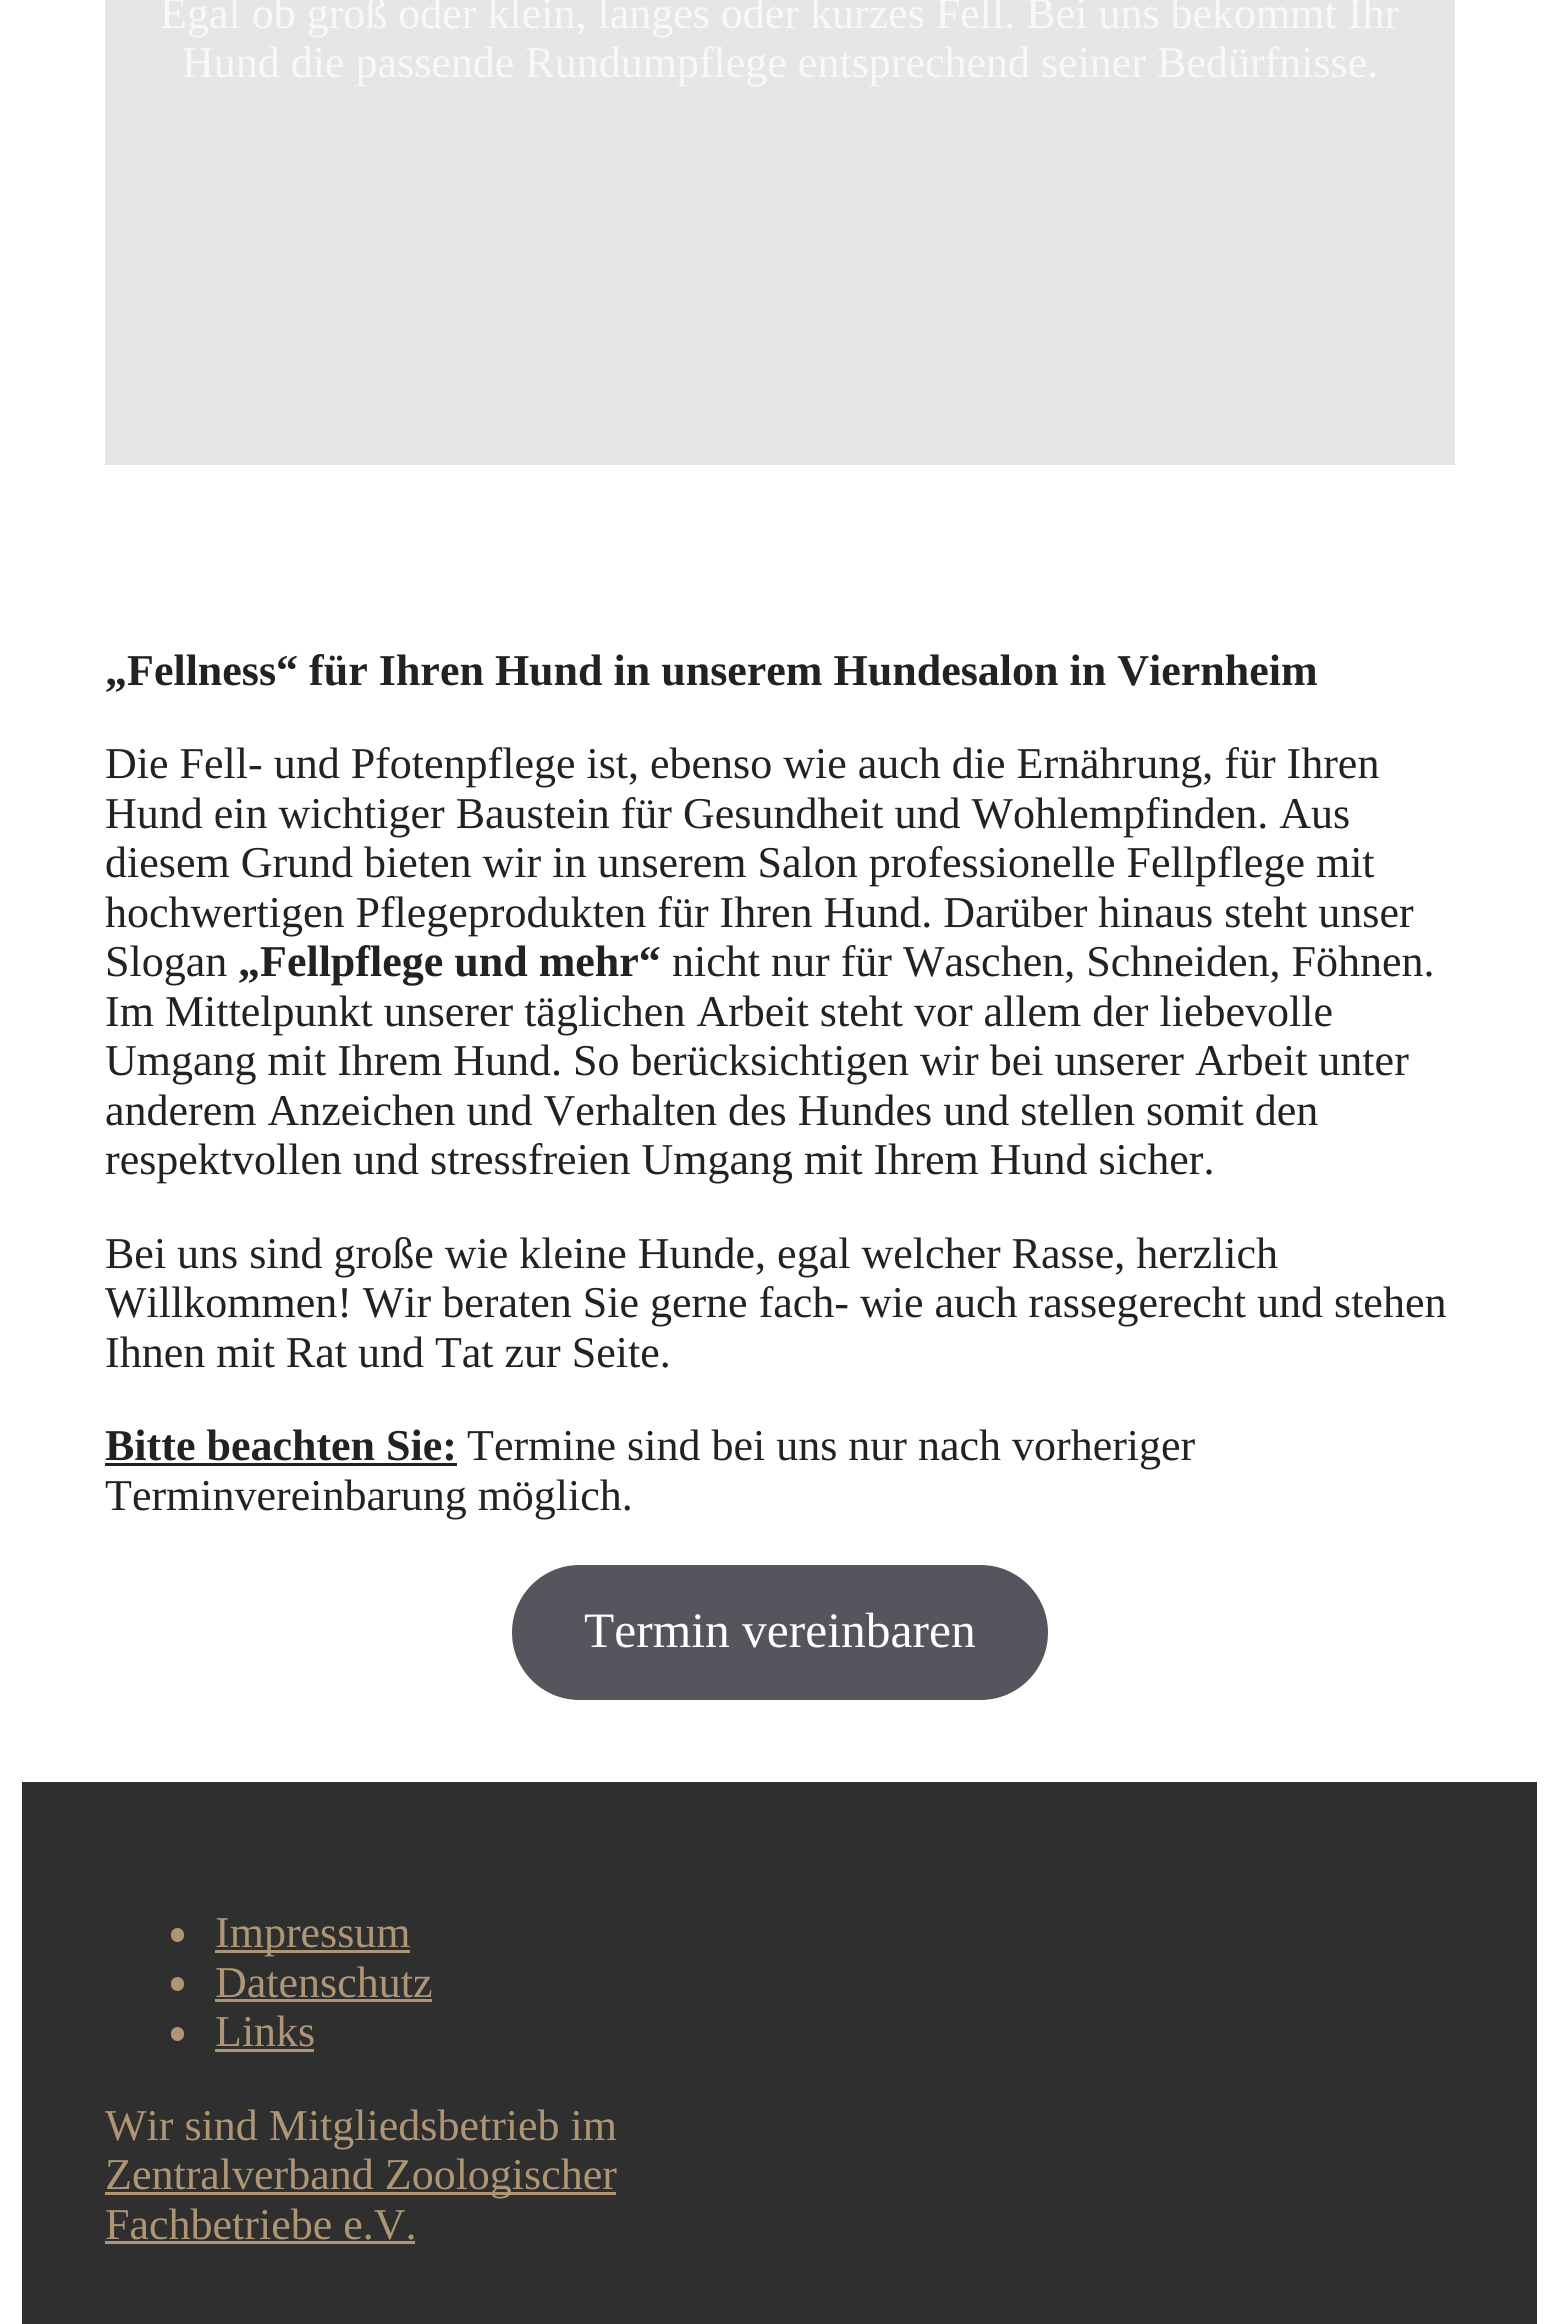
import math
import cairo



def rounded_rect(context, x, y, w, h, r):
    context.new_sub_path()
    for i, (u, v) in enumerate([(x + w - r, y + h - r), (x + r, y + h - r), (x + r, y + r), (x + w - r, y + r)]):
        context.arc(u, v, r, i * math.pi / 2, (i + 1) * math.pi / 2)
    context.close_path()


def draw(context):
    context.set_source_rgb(1, 1, 1)
    context.paint()
    context.set_source_rgb(230 / 255, 230 / 255, 230 / 255)
    context.rectangle(105, 0, 1350, 465)
    context.fill()
    context.set_source_rgb(34 / 255, 34 / 255, 34 / 255)
    context.rectangle(105, 1463, 352, 3)
    context.fill()
    context.set_source_rgb(85 / 255, 85 / 255, 94 / 255)
    rounded_rect(context, 512, 1565, 536, 135, 67.5)
    context.fill()
    context.set_source_rgb(47 / 255, 47 / 255, 47 / 255)
    context.rectangle(22, 1782, 1515, 542)
    context.fill()
    context.set_source_rgb(174 / 255, 150 / 255, 117 / 255)
    rounded_rect(context, 171, 1928, 13, 14, 6.5)
    context.fill()
    context.rectangle(215, 1950, 195, 3)
    context.fill()
    rounded_rect(context, 171, 1977, 13, 14, 6.5)
    context.fill()
    context.rectangle(215, 1999, 217, 3)
    context.fill()
    rounded_rect(context, 171, 2027, 13, 14, 6.5)
    context.fill()
    context.rectangle(215, 2049, 99, 3)
    context.fill()
    context.rectangle(105, 2192, 511, 3)
    context.fill()
    context.rectangle(105, 2241, 310, 3)
    context.fill()
    context.select_font_face("Liberation Serif")
    context.set_font_size(44)
    context.set_source_rgb(247 / 255, 248 / 255, 249 / 255)
    context.move_to(160, 28)
    context.show_text("Egal ob groß oder klein, langes oder kurzes Fell. Bei uns bekommt Ihr")
    context.move_to(182, 77)
    context.show_text("Hund die passende Rundumpflege entsprechend seiner Bedürfnisse.")
    context.select_font_face("Liberation Serif", cairo.FontSlant.NORMAL, cairo.FontWeight.BOLD)
    context.set_source_rgb(34 / 255, 34 / 255, 34 / 255)
    context.move_to(105, 685)
    context.show_text("„Fellness“ für Ihren Hund in unserem Hundesalon in Viernheim")
    context.select_font_face("Liberation Serif")
    context.move_to(105, 778)
    context.show_text("Die Fell- und Pfotenpflege ist, ebenso wie auch die Ernährung, für Ihren")
    context.move_to(105, 828)
    context.show_text("Hund ein wichtiger Baustein für Gesundheit und Wohlempfinden. Aus")
    context.move_to(105, 877)
    context.show_text("diesem Grund bieten wir in unserem Salon professionelle Fellpflege mit")
    context.move_to(105, 927)
    context.show_text("hochwertigen Pflegeprodukten für Ihren Hund. Darüber hinaus steht unser")
    context.move_to(105, 976)
    context.show_text("Slogan")
    context.select_font_face("Liberation Serif", cairo.FontSlant.NORMAL, cairo.FontWeight.BOLD)
    context.move_to(238, 976)
    context.show_text("„Fellpflege und mehr“")
    context.select_font_face("Liberation Serif")
    context.move_to(672, 976)
    context.show_text("nicht nur für Waschen, Schneiden, Föhnen.")
    context.move_to(105, 1026)
    context.show_text("Im Mittelpunkt unserer täglichen Arbeit steht vor allem der liebevolle")
    context.move_to(105, 1075)
    context.show_text("Umgang mit Ihrem Hund. So berücksichtigen wir bei unserer Arbeit unter")
    context.move_to(105, 1125)
    context.show_text("anderem Anzeichen und Verhalten des Hundes und stellen somit den")
    context.move_to(105, 1174)
    context.show_text("respektvollen und stressfreien Umgang mit Ihrem Hund sicher.")
    context.move_to(105, 1268)
    context.show_text("Bei uns sind große wie kleine Hunde, egal welcher Rasse, herzlich")
    context.move_to(105, 1317)
    context.show_text("Willkommen! Wir beraten Sie gerne fach- wie auch rassegerecht und stehen")
    context.move_to(105, 1367)
    context.show_text("Ihnen mit Rat und Tat zur Seite.")
    context.select_font_face("Liberation Serif", cairo.FontSlant.NORMAL, cairo.FontWeight.BOLD)
    context.move_to(105, 1460)
    context.show_text("Bitte beachten Sie:")
    context.select_font_face("Liberation Serif")
    context.move_to(467, 1460)
    context.show_text("Termine sind bei uns nur nach vorheriger")
    context.move_to(105, 1510)
    context.show_text("Terminvereinbarung möglich.")
    context.set_font_size(49.5)
    context.set_source_rgb(1, 1, 1)
    context.move_to(584, 1647)
    context.show_text("Termin vereinbaren")
    context.set_font_size(44)
    context.set_source_rgb(174 / 255, 150 / 255, 117 / 255)
    context.move_to(215, 1947)
    context.show_text("Impressum")
    context.move_to(215, 1997)
    context.show_text("Datenschutz")
    context.move_to(215, 2046)
    context.show_text("Links")
    context.move_to(105, 2140)
    context.show_text("Wir sind Mitgliedsbetrieb im")
    context.move_to(105, 2189)
    context.show_text("Zentralverband Zoologischer")
    context.move_to(105, 2239)
    context.show_text("Fachbetriebe e.V.")


surface = cairo.ImageSurface(cairo.Format.RGB24, 1557, 2324)
context = cairo.Context(surface)
options = cairo.FontOptions()
options.set_hint_metrics(cairo.HintMetrics.OFF)
options.set_hint_style(cairo.HintStyle.NONE)
context.set_font_options(options)
context.set_miter_limit(4)
draw(context)
surface.write_to_png("out.png")
